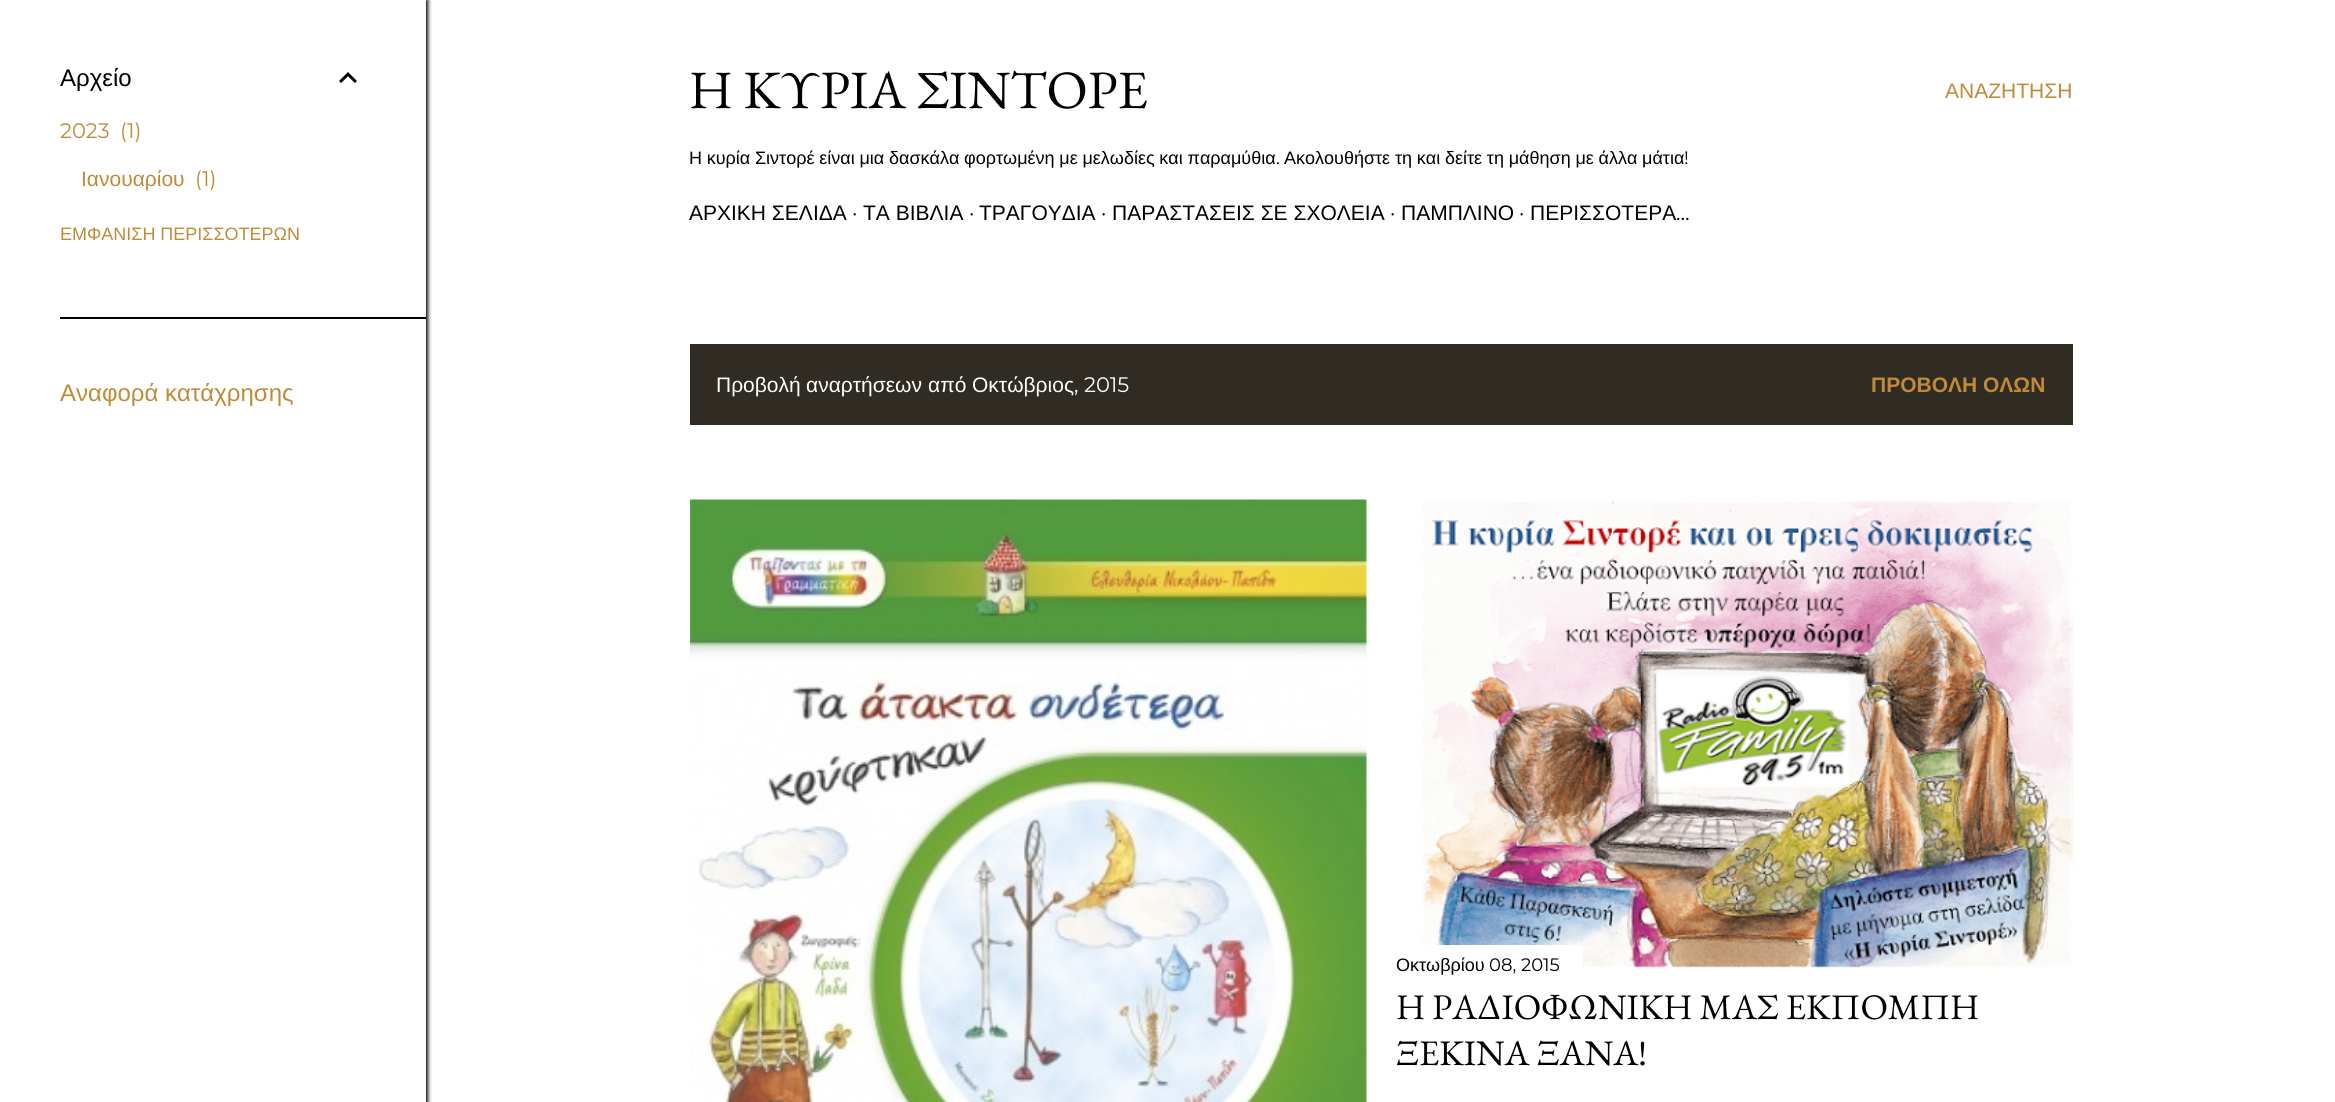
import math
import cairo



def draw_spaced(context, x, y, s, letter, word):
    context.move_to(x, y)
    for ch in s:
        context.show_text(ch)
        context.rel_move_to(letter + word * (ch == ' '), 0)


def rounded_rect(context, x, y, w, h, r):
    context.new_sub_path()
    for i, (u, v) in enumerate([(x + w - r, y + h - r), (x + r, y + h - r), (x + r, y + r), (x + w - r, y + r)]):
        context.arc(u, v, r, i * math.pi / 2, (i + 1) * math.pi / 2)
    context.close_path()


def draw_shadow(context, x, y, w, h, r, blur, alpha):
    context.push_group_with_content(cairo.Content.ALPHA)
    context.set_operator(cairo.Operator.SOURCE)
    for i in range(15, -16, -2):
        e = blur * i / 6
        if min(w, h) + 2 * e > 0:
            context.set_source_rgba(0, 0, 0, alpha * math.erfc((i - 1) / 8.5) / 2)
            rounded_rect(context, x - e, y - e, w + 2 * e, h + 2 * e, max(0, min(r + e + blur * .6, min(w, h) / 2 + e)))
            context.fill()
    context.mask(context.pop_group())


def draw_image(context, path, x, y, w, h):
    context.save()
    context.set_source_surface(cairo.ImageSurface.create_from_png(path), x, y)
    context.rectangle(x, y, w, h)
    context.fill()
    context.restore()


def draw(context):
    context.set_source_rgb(1, 1, 1)
    context.paint()
    context.save()
    context.rectangle(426, 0, 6, 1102)
    context.clip()
    context.set_source_rgb(0, 0, 0)
    draw_shadow(context, 2, 0, 426, 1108, 0, 2, 1)
    context.restore()
    draw_image(context, "images/1.png", 339, 72, 18, 11)
    context.set_source_rgb(0, 0, 0)
    context.rectangle(60, 317, 366, 2)
    context.fill()
    context.set_source_rgb(48 / 255, 44 / 255, 36 / 255)
    context.rectangle(690, 344, 1383, 81)
    context.fill()
    draw_image(context, "images/2.png", 690, 499, 677, 603)
    draw_image(context, "images/3.png", 1422, 500, 651, 468)
    context.set_source_rgb(1, 1, 1)
    context.rectangle(1422, 945, 161, 23)
    context.fill()
    context.select_font_face("Liberation Sans")
    context.set_font_size(24)
    context.set_source_rgb(0, 0, 0)
    context.move_to(60, 86)
    context.show_text("Αρχείο")
    context.select_font_face("Montserrat")
    context.set_font_size(21)
    context.set_source_rgb(191 / 255, 139 / 255, 56 / 255)
    context.move_to(60, 138)
    context.show_text("2023")
    context.move_to(120, 138)
    context.show_text("(1)")
    context.select_font_face("Liberation Sans")
    context.move_to(81, 186)
    context.show_text("Ιανουαρίου")
    context.select_font_face("Montserrat")
    context.move_to(195, 186)
    context.show_text("(1)")
    context.select_font_face("Liberation Sans")
    context.set_font_size(18)
    draw_spaced(context, 60, 240, "ΕΜΦΑΝΙΣΗ ΠΕΡΙΣΣΟΤΕΡΩΝ", 0, -0.25)
    context.set_font_size(24)
    context.move_to(60, 401)
    context.show_text("Αναφορά κατάχρησης")
    context.select_font_face("EB Garamond")
    context.set_font_size(54)
    context.set_source_rgb(0, 0, 0)
    context.move_to(689, 108)
    context.show_text("Η ΚΥΡΙΑ ΣΙΝΤΟΡΕ")
    context.select_font_face("Liberation Sans")
    context.set_font_size(18)
    draw_spaced(context, 689, 164, "Η κυρία Σιντορέ είναι μια δασκάλα φορτωμένη με μελωδίες και παραμύθια", 0, -0.25)
    context.select_font_face("Montserrat")
    context.move_to(1276, 164)
    context.show_text(".")
    context.select_font_face("Liberation Sans")
    draw_spaced(context, 1284, 164, "Ακολουθήστε τη και δείτε τη μάθηση με άλλα μάτια", 0, -0.25)
    context.select_font_face("Montserrat")
    context.move_to(1684, 164)
    context.show_text("!")
    context.select_font_face("Liberation Sans")
    context.set_font_size(21)
    context.move_to(689, 220)
    context.show_text("ΑΡΧΙΚΗ ΣΕΛΙΔΑ")
    context.select_font_face("Montserrat")
    context.move_to(852, 220)
    context.show_text("·")
    context.select_font_face("Liberation Sans")
    context.move_to(863, 220)
    context.show_text("ΤΑ ΒΙΒΛΙΑ")
    context.select_font_face("Montserrat")
    context.move_to(969, 220)
    context.show_text("·")
    context.select_font_face("Liberation Sans")
    context.move_to(979, 220)
    context.show_text("ΤΡΑΓΟΥΔΙΑ")
    context.select_font_face("Montserrat")
    context.move_to(1101, 220)
    context.show_text("·")
    context.select_font_face("Liberation Sans")
    context.move_to(1112, 220)
    context.show_text("ΠΑΡΑΣΤΑΣΕΙΣ ΣΕ ΣΧΟΛΕΙΑ")
    context.select_font_face("Montserrat")
    context.move_to(1390, 220)
    context.show_text("·")
    context.select_font_face("Liberation Sans")
    context.move_to(1401, 220)
    context.show_text("ΠΑΜΠΛΙΝΟ")
    context.select_font_face("Montserrat")
    context.move_to(1519, 220)
    context.show_text("·")
    context.select_font_face("Liberation Sans")
    context.move_to(1530, 220)
    context.show_text("ΠΕΡΙΣΣΟΤΕΡΑ")
    context.select_font_face("Montserrat")
    context.move_to(1676, 220)
    context.show_text("…")
    context.select_font_face("Liberation Sans")
    context.set_source_rgb(191 / 255, 139 / 255, 56 / 255)
    context.move_to(1945, 98)
    context.show_text("ΑΝΑΖΗΤΗΣΗ")
    context.set_source_rgb(1, 1, 1)
    context.move_to(716, 392)
    context.show_text("Προβολή")
    context.move_to(806, 392)
    context.show_text("αναρτήσεων")
    context.move_to(928, 392)
    context.show_text("από")
    context.move_to(972, 392)
    context.show_text("Οκτώβριος")
    context.select_font_face("Montserrat")
    context.move_to(1074, 392)
    context.show_text(", 2015")
    context.select_font_face("Liberation Sans", cairo.FontSlant.NORMAL, cairo.FontWeight.BOLD)
    context.set_source_rgb(191 / 255, 139 / 255, 56 / 255)
    context.move_to(1871, 392)
    context.show_text("ΠΡΟΒΟΛΗ ΟΛΩΝ")
    context.select_font_face("Liberation Sans")
    context.set_font_size(18)
    context.set_source_rgb(0, 0, 0)
    context.move_to(1396, 971)
    context.show_text("Οκτωβρίου")
    context.select_font_face("Montserrat")
    context.move_to(1489, 971)
    context.show_text("08, 2015")
    context.select_font_face("EB Garamond")
    context.set_font_size(36)
    context.move_to(1396, 1019)
    context.show_text("Η ΡΑΔΙΟΦΩΝΙΚΗ ΜΑΣ ΕΚΠΟΜΠΗ")
    context.move_to(1396, 1065)
    context.show_text("ΞΕΚΙΝΑ ΞΑΝΑ!")


surface = cairo.ImageSurface(cairo.Format.RGB24, 2335, 1102)
context = cairo.Context(surface)
options = cairo.FontOptions()
options.set_hint_metrics(cairo.HintMetrics.OFF)
options.set_hint_style(cairo.HintStyle.NONE)
context.set_font_options(options)
context.set_miter_limit(4)
draw(context)
surface.write_to_png("out.png")
